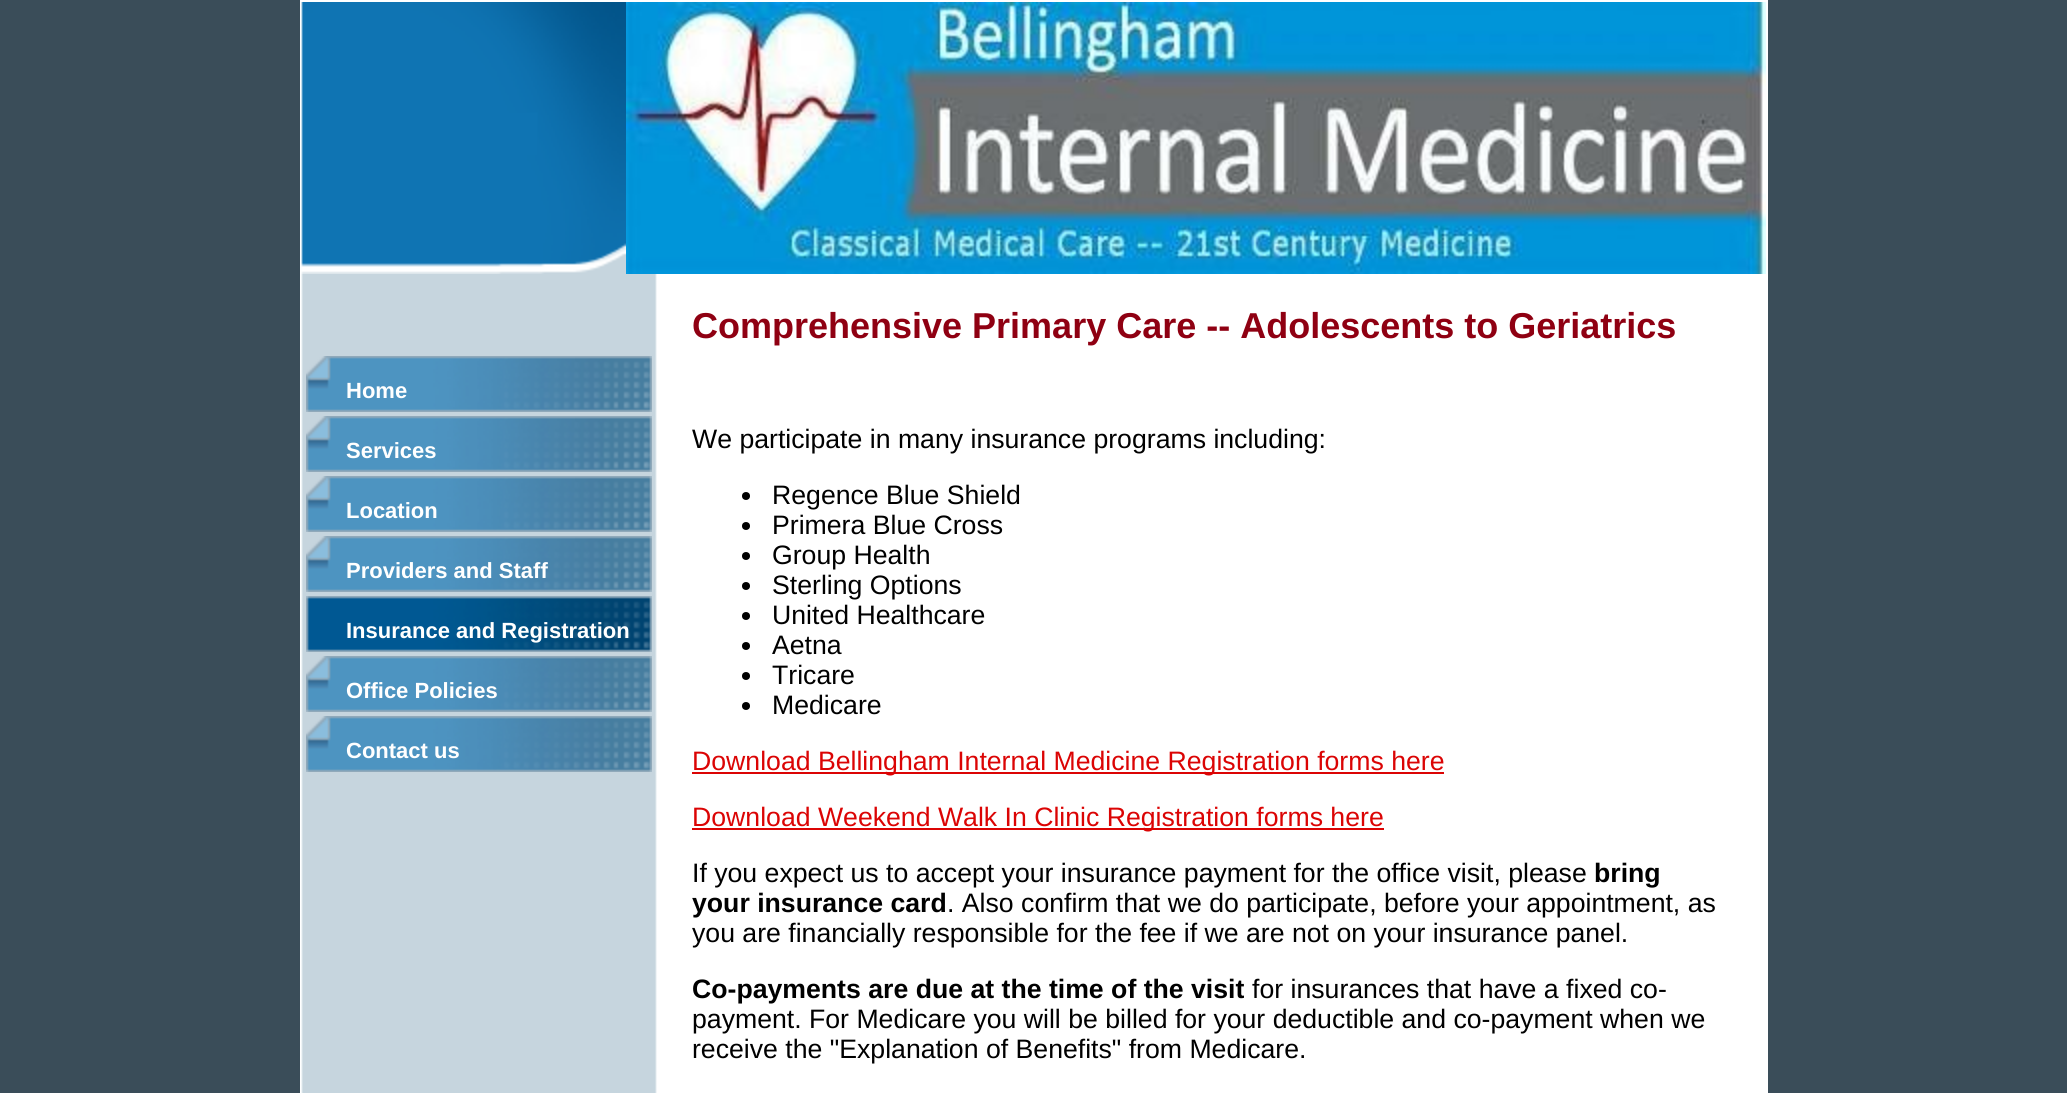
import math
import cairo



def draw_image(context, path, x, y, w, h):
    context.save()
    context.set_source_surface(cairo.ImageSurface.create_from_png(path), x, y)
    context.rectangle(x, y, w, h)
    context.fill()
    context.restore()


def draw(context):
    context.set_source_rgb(58 / 255, 77 / 255, 89 / 255)
    context.paint()
    context.set_source_rgb(1, 1, 1)
    context.rectangle(300, 0, 1468, 1093)
    context.fill()
    draw_image(context, "images/1.png", 301, 2, 325, 272)
    draw_image(context, "images/2.png", 626, 2, 1140, 272)
    draw_image(context, "images/3.png", 301, 274, 356, 819)
    draw_image(context, "images/4.png", 306, 356, 346, 56)
    draw_image(context, "images/4.png", 306, 416, 346, 56)
    draw_image(context, "images/4.png", 306, 476, 346, 56)
    draw_image(context, "images/4.png", 306, 536, 346, 56)
    draw_image(context, "images/5.png", 306, 596, 346, 56)
    draw_image(context, "images/4.png", 306, 656, 346, 56)
    draw_image(context, "images/4.png", 306, 716, 346, 56)
    context.set_source_rgb(0, 0, 0)
    context.arc(746, 496, 4, 0, 2 * math.pi)
    context.fill()
    context.arc(746, 526, 4, 0, 2 * math.pi)
    context.fill()
    context.arc(746, 556, 4, 0, 2 * math.pi)
    context.fill()
    context.arc(746, 586, 4, 0, 2 * math.pi)
    context.fill()
    context.arc(746, 616, 4, 0, 2 * math.pi)
    context.fill()
    context.arc(746, 646, 4, 0, 2 * math.pi)
    context.fill()
    context.arc(746, 676, 4, 0, 2 * math.pi)
    context.fill()
    context.arc(746, 706, 4, 0, 2 * math.pi)
    context.fill()
    context.set_source_rgb(219 / 255, 4 / 255, 4 / 255)
    context.rectangle(692, 772, 752, 2)
    context.fill()
    context.rectangle(692, 828, 692, 2)
    context.fill()
    context.select_font_face("Liberation Sans", cairo.FontSlant.NORMAL, cairo.FontWeight.BOLD)
    context.set_font_size(22)
    context.set_source_rgb(1, 1, 1)
    context.move_to(346, 398)
    context.show_text("Home")
    context.move_to(346, 458)
    context.show_text("Services")
    context.move_to(346, 518)
    context.show_text("Location")
    context.move_to(346, 578)
    context.show_text("Providers and Staff")
    context.move_to(346, 638)
    context.show_text("Insurance and Registration")
    context.move_to(346, 698)
    context.show_text("Office Policies")
    context.move_to(346, 758)
    context.show_text("Contact us")
    context.set_font_size(36)
    context.set_source_rgb(143 / 255, 0, 18 / 255)
    context.move_to(692, 338)
    context.show_text("Comprehensive Primary Care -- Adolescents to Geriatrics")
    context.select_font_face("Liberation Sans")
    context.set_font_size(26.65)
    context.set_source_rgb(0, 0, 0)
    context.move_to(692, 448)
    context.show_text("We participate in many insurance programs including:")
    context.move_to(772, 504)
    context.show_text("Regence Blue Shield")
    context.move_to(772, 534)
    context.show_text("Primera Blue Cross")
    context.move_to(772, 564)
    context.show_text("Group Health")
    context.move_to(772, 594)
    context.show_text("Sterling Options")
    context.move_to(772, 624)
    context.show_text("United Healthcare")
    context.move_to(772, 654)
    context.show_text("Aetna")
    context.move_to(772, 684)
    context.show_text("Tricare")
    context.move_to(772, 714)
    context.show_text("Medicare")
    context.set_source_rgb(219 / 255, 4 / 255, 4 / 255)
    context.move_to(692, 770)
    context.show_text("Download Bellingham Internal Medicine Registration forms here")
    context.move_to(692, 826)
    context.show_text("Download Weekend Walk In Clinic Registration forms here")
    context.set_source_rgb(0, 0, 0)
    context.move_to(692, 882)
    context.show_text("If you expect us to accept your insurance payment for the office visit, please")
    context.select_font_face("Liberation Sans", cairo.FontSlant.NORMAL, cairo.FontWeight.BOLD)
    context.move_to(1594, 882)
    context.show_text("bring")
    context.move_to(692, 912)
    context.show_text("your insurance card")
    context.select_font_face("Liberation Sans")
    context.move_to(947, 912)
    context.show_text(". Also confirm that we do participate, before your appointment, as")
    context.move_to(692, 942)
    context.show_text("you are financially responsible for the fee if we are not on your insurance panel.")
    context.select_font_face("Liberation Sans", cairo.FontSlant.NORMAL, cairo.FontWeight.BOLD)
    context.move_to(692, 998)
    context.show_text("Co-payments are due at the time of the visit")
    context.select_font_face("Liberation Sans")
    context.move_to(1252, 998)
    context.show_text("for insurances that have a fixed co-")
    context.move_to(692, 1028)
    context.show_text("payment. For Medicare you will be billed for your deductible and co-payment when we")
    context.move_to(692, 1058)
    context.show_text("receive the \"Explanation of Benefits\" from Medicare.")


surface = cairo.ImageSurface(cairo.Format.RGB24, 2067, 1093)
context = cairo.Context(surface)
options = cairo.FontOptions()
options.set_hint_metrics(cairo.HintMetrics.OFF)
options.set_hint_style(cairo.HintStyle.NONE)
context.set_font_options(options)
context.set_miter_limit(4)
draw(context)
surface.write_to_png("out.png")
